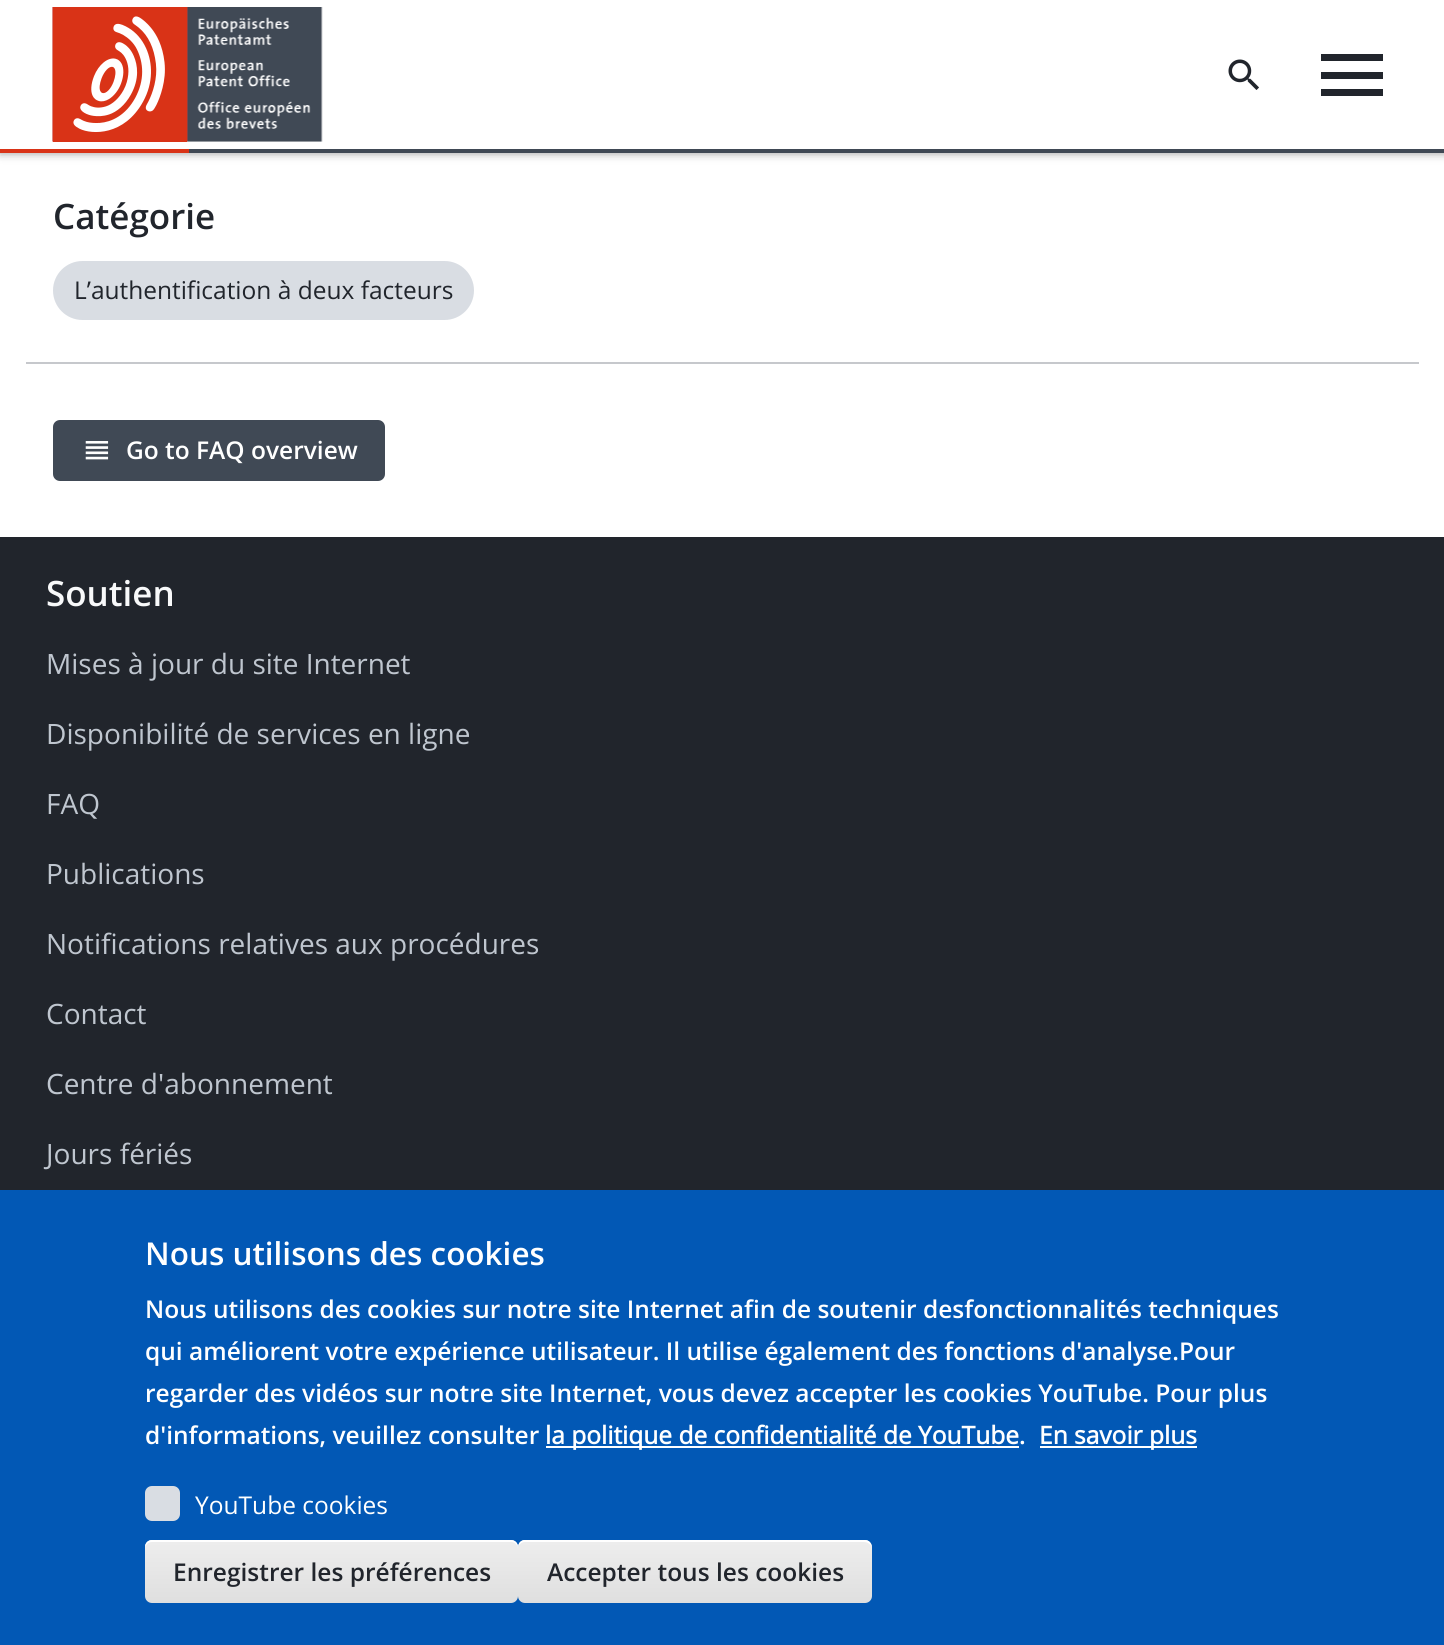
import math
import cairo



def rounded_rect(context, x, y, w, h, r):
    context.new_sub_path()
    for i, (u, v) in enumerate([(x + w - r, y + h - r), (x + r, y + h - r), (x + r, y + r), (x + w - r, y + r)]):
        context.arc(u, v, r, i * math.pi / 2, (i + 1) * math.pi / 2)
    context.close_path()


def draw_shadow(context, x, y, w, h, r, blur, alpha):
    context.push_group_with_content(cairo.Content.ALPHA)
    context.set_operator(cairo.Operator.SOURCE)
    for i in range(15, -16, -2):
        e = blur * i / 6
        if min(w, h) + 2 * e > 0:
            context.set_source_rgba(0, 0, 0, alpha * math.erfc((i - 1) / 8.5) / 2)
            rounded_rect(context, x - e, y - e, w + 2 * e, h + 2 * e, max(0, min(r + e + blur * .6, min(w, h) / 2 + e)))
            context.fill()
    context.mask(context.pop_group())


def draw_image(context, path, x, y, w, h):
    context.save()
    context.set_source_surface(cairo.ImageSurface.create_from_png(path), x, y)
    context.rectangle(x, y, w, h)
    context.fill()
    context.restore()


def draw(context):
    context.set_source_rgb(1, 1, 1)
    context.paint()
    context.set_source_rgb(0, 0, 0)
    draw_shadow(context, 0, 0, 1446, 152, 0, 5, 0.5)
    context.set_source_rgb(1, 1, 1)
    context.rectangle(0, 0, 1444, 149)
    context.fill()
    context.set_source_rgb(64 / 255, 73 / 255, 85 / 255)
    context.rectangle(189, 149, 1255, 4)
    context.fill()
    draw_image(context, "images/1.png", 52, 7, 271, 135)
    draw_image(context, "images/2.png", 53, 7, 134, 135)
    context.set_source_rgb(217 / 255, 51 / 255, 23 / 255)
    context.rectangle(0, 149, 189, 4)
    context.fill()
    draw_image(context, "images/3.png", 1228, 59, 31, 31)
    context.set_source_rgb(33 / 255, 37 / 255, 44 / 255)
    context.rectangle(1321, 54, 62, 7)
    context.fill()
    context.rectangle(1321, 72, 62, 7)
    context.fill()
    context.rectangle(1321, 89, 62, 7)
    context.fill()
    context.set_source_rgb(198 / 255, 200 / 255, 204 / 255)
    context.rectangle(26, 362, 1393, 2)
    context.fill()
    context.set_source_rgb(217 / 255, 221 / 255, 227 / 255)
    rounded_rect(context, 53, 261, 421, 59, 29.5)
    context.fill()
    context.set_source_rgb(64 / 255, 73 / 255, 85 / 255)
    rounded_rect(context, 53, 420, 332, 61, 7)
    context.fill()
    draw_image(context, "images/4.png", 85, 441, 24, 19)
    context.set_source_rgb(33 / 255, 37 / 255, 44 / 255)
    context.rectangle(0, 537, 1444, 653)
    context.fill()
    context.set_source_rgb(2 / 255, 88 / 255, 181 / 255)
    context.rectangle(0, 1190, 1444, 455)
    context.fill()
    context.set_source_rgb(1, 1, 1)
    context.rectangle(546, 1446, 473, 2)
    context.fill()
    context.rectangle(1040, 1446, 157, 2)
    context.fill()
    context.set_source_rgb(217 / 255, 221 / 255, 227 / 255)
    rounded_rect(context, 145, 1486, 35, 35, 7)
    context.fill()
    gradient = cairo.LinearGradient(332, 1540, 332, 1603)
    gradient.add_color_stop_rgba(0.05, 237 / 255, 237 / 255, 237 / 255, 1)
    gradient.add_color_stop_rgba(1, 223 / 255, 223 / 255, 223 / 255, 1)
    context.set_source(gradient)
    rounded_rect(context, 145, 1540, 373, 63, 7)
    context.fill()
    context.set_source_rgb(1, 1, 1)
    context.new_path()
    context.move_to(152, 1542)
    context.line_to(511, 1542)
    context.curve_to(515, 1542, 518, 1545, 518, 1549)
    context.line_to(518, 1547)
    context.curve_to(518, 1543, 515, 1540, 511, 1540)
    context.line_to(152, 1540)
    context.curve_to(148, 1540, 145, 1543, 145, 1547)
    context.line_to(145, 1549)
    context.curve_to(145, 1545, 148, 1542, 152, 1542)
    context.close_path()
    context.fill()
    gradient = cairo.LinearGradient(695, 1540, 695, 1603)
    gradient.add_color_stop_rgba(0.05, 237 / 255, 237 / 255, 237 / 255, 1)
    gradient.add_color_stop_rgba(1, 223 / 255, 223 / 255, 223 / 255, 1)
    context.set_source(gradient)
    rounded_rect(context, 518, 1540, 354, 63, 7)
    context.fill()
    context.set_source_rgb(1, 1, 1)
    context.new_path()
    context.move_to(525, 1542)
    context.line_to(864, 1542)
    context.curve_to(868, 1542, 872, 1545, 872, 1549)
    context.curve_to(872, 1545, 870, 1540, 865, 1540)
    context.line_to(524, 1540)
    context.curve_to(519, 1541, 518, 1545, 518, 1549)
    context.curve_to(518, 1545, 521, 1542, 525, 1542)
    context.close_path()
    context.fill()
    context.select_font_face("Open Sans SemiBold")
    context.set_font_size(35)
    context.set_source_rgb(33 / 255, 37 / 255, 44 / 255)
    context.move_to(53, 229)
    context.show_text("Catégorie")
    context.select_font_face("Open Sans")
    context.set_font_size(24.5)
    context.move_to(74, 299)
    context.show_text("L’authentification à deux facteurs")
    context.select_font_face("Open Sans SemiBold")
    context.set_source_rgb(1, 1, 1)
    context.move_to(126, 459)
    context.show_text("Go to FAQ overview")
    context.set_font_size(35)
    context.set_source_rgb(248 / 255, 249 / 255, 250 / 255)
    context.move_to(46, 606)
    context.show_text("Soutien")
    context.select_font_face("Open Sans")
    context.set_font_size(28)
    context.set_source_rgb(191 / 255, 198 / 255, 207 / 255)
    context.move_to(46, 674)
    context.show_text("Mises à jour du site Internet")
    context.move_to(46, 744)
    context.show_text("Disponibilité de services en ligne")
    context.move_to(46, 814)
    context.show_text("FAQ")
    context.move_to(46, 884)
    context.show_text("Publications")
    context.move_to(46, 954)
    context.show_text("Notifications relatives aux procédures")
    context.move_to(46, 1024)
    context.show_text("Contact")
    context.move_to(46, 1094)
    context.show_text("Centre d'abonnement")
    context.move_to(46, 1164)
    context.show_text("Jours fériés")
    context.select_font_face("Open Sans SemiBold")
    context.set_font_size(31.5)
    context.set_source_rgb(1, 1, 1)
    context.move_to(145, 1265)
    context.show_text("Nous utilisons des cookies")
    context.set_font_size(24.5)
    context.move_to(145, 1318)
    context.show_text("Nous utilisons des cookies sur notre site Internet afin de soutenir desfonctionnalités techniques")
    context.move_to(145, 1360)
    context.show_text("qui améliorent votre expérience utilisateur. Il utilise également des fonctions d'analyse.Pour")
    context.move_to(145, 1402)
    context.show_text("regarder des vidéos sur notre site Internet, vous devez accepter les cookies YouTube. Pour plus")
    context.move_to(145, 1444)
    context.show_text("d'informations, veuillez consulter")
    context.select_font_face("Open Sans", cairo.FontSlant.NORMAL, cairo.FontWeight.BOLD)
    context.move_to(545, 1444)
    context.show_text("la politique de confidentialité de YouTube")
    context.select_font_face("Open Sans SemiBold")
    context.move_to(1019, 1444)
    context.show_text(".")
    context.select_font_face("Open Sans", cairo.FontSlant.NORMAL, cairo.FontWeight.BOLD)
    context.move_to(1039, 1444)
    context.show_text("En savoir plus")
    context.select_font_face("Open Sans")
    context.move_to(195, 1514)
    context.show_text("YouTube cookies")
    context.select_font_face("Open Sans SemiBold")
    context.set_source_rgb(33 / 255, 37 / 255, 44 / 255)
    context.move_to(173, 1581)
    context.show_text("Enregistrer les préférences")
    context.move_to(547, 1581)
    context.show_text("Accepter tous les cookies")


surface = cairo.ImageSurface(cairo.Format.RGB24, 1444, 1645)
context = cairo.Context(surface)
options = cairo.FontOptions()
options.set_hint_metrics(cairo.HintMetrics.OFF)
options.set_hint_style(cairo.HintStyle.NONE)
context.set_font_options(options)
context.set_miter_limit(4)
draw(context)
surface.write_to_png("out.png")
